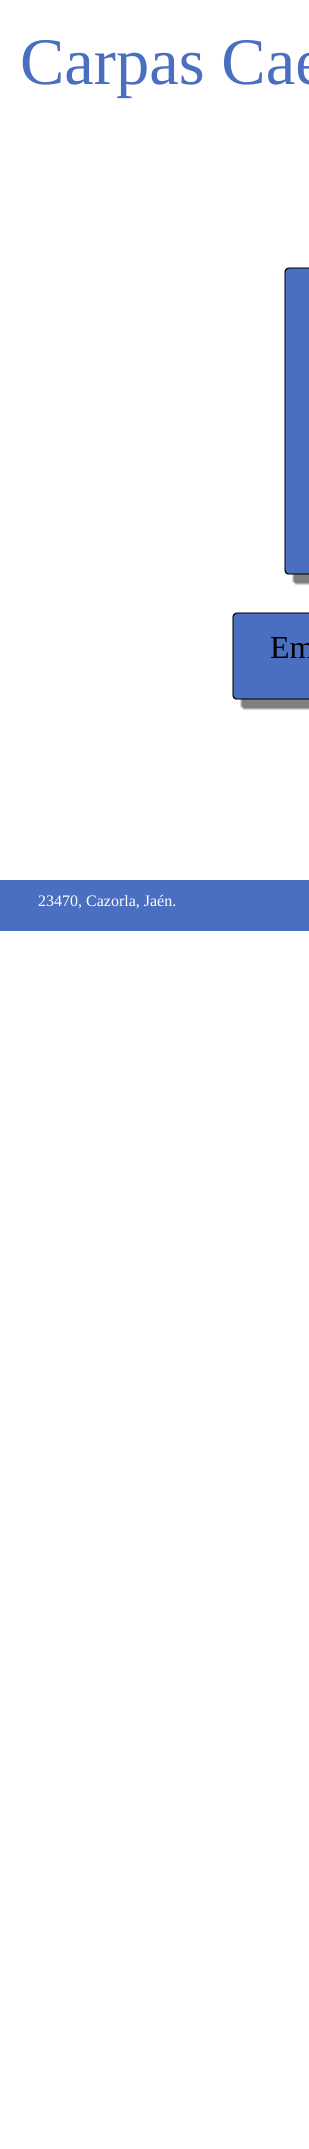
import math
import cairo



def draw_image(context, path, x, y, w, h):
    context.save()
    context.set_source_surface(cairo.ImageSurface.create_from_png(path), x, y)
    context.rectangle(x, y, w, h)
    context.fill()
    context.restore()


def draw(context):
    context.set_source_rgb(1, 1, 1)
    context.paint()
    draw_image(context, "images/1.png", 284, 267, 25, 318)
    draw_image(context, "images/2.png", 232, 612, 77, 98)
    context.set_source_rgb(74 / 255, 111 / 255, 193 / 255)
    context.rectangle(0, 880, 309, 51)
    context.fill()
    context.select_font_face("Liberation Serif")
    context.set_font_size(66.5)
    context.move_to(20, 84)
    context.show_text("Carpas Cae")
    context.set_font_size(32)
    context.set_source_rgb(0, 0, 0)
    context.move_to(270, 658)
    context.show_text("Em")
    context.set_font_size(16)
    context.set_source_rgb(1, 1, 1)
    context.move_to(38, 906)
    context.show_text("23470, Cazorla, Jaén.")


surface = cairo.ImageSurface(cairo.Format.RGB24, 309, 2149)
context = cairo.Context(surface)
options = cairo.FontOptions()
options.set_hint_metrics(cairo.HintMetrics.OFF)
options.set_hint_style(cairo.HintStyle.NONE)
context.set_font_options(options)
context.set_miter_limit(4)
draw(context)
surface.write_to_png("out.png")
